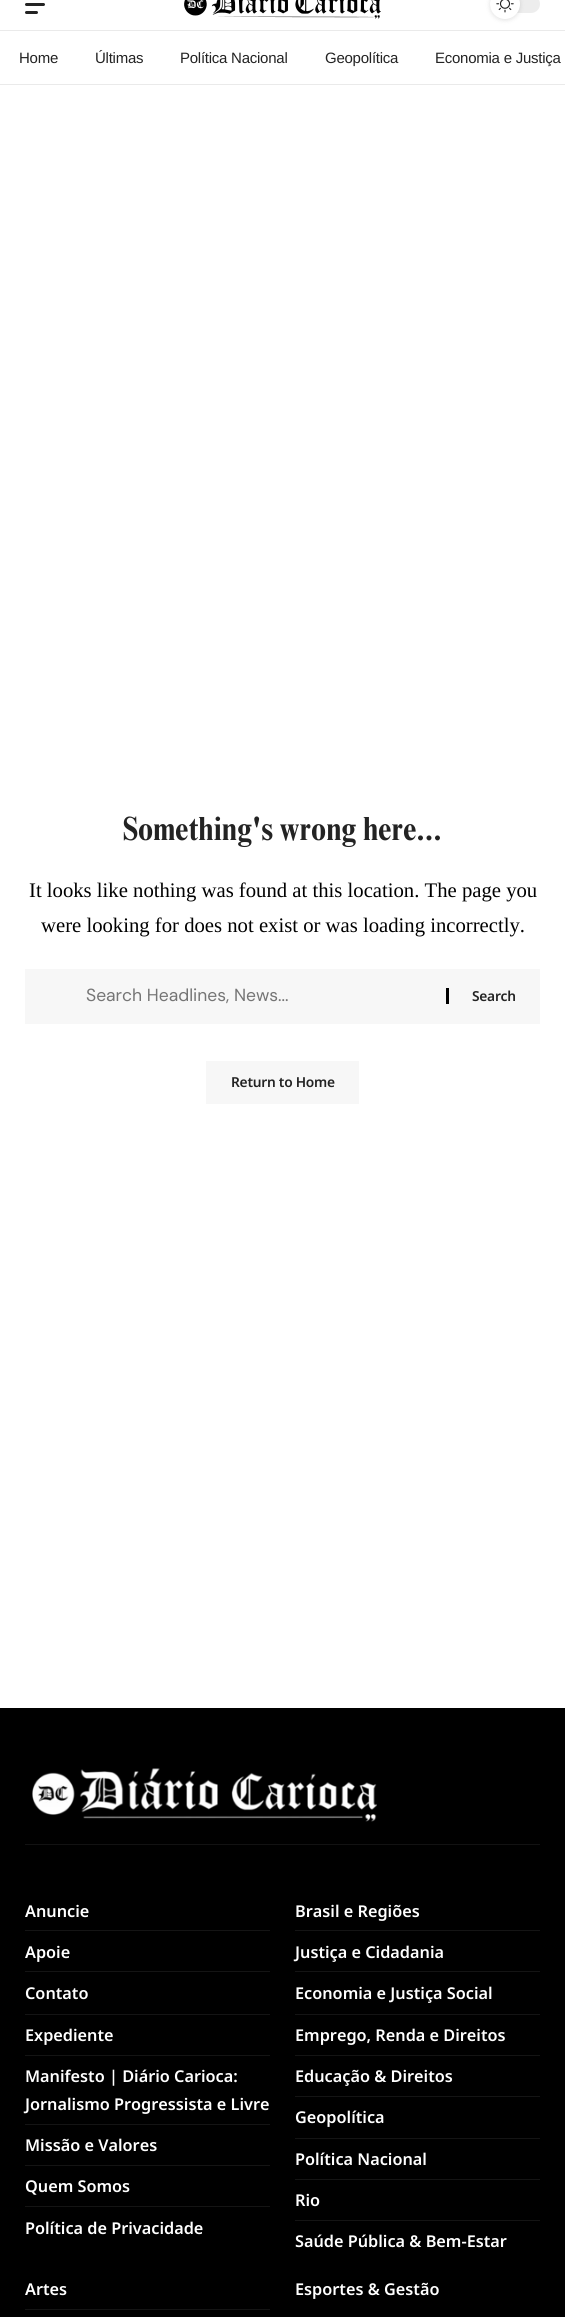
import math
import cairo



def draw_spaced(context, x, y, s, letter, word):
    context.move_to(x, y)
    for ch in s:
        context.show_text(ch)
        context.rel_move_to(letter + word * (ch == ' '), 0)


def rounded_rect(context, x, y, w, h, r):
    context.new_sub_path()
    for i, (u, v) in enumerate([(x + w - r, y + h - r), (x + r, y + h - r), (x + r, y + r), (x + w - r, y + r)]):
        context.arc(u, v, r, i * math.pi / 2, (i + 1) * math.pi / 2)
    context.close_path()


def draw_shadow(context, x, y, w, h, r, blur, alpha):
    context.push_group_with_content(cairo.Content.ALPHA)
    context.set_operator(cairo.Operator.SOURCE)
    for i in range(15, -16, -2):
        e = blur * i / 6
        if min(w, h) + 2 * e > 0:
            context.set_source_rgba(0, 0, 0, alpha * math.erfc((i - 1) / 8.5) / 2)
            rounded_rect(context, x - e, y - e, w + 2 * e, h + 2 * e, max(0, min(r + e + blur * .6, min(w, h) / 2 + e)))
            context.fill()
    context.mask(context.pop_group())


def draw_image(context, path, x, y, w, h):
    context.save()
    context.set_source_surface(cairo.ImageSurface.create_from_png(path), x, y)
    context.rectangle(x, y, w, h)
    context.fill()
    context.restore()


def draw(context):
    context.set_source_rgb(1, 1, 1)
    context.paint()
    context.set_source_rgb(234 / 255, 234 / 255, 234 / 255)
    context.rectangle(0, 84, 565, 1)
    context.fill()
    context.set_source_rgb(35 / 255, 35 / 255, 35 / 255)
    rounded_rect(context, 25, 3, 20, 3, 1.5)
    context.fill()
    rounded_rect(context, 25, 11, 13, 3, 1.5)
    context.fill()
    draw_image(context, "images/1.png", 184, 0, 197, 19)
    context.set_source_rgb(237 / 255, 237 / 255, 237 / 255)
    rounded_rect(context, 490, -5, 50, 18, 9)
    context.fill()
    context.set_source_rgb(0, 0, 0)
    draw_shadow(context, 490, -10, 30, 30, 15, 2.5, 0.12)
    context.set_source_rgb(1, 1, 1)
    context.arc(505, 4, 15, 0, 2 * math.pi)
    context.fill()
    draw_image(context, "images/2.png", 496, 0, 18, 13)
    context.set_source_rgb(234 / 255, 234 / 255, 234 / 255)
    context.rectangle(0, 30, 565, 1)
    context.fill()
    context.set_source_rgb(247 / 255, 247 / 255, 247 / 255)
    context.rectangle(25, 969, 515, 55)
    context.fill()
    context.set_source_rgb(0, 0, 0)
    context.rectangle(446, 988, 3, 16)
    context.fill()
    context.set_source_rgb(247 / 255, 247 / 255, 247 / 255)
    context.rectangle(206, 1061, 153, 43)
    context.fill()
    context.set_source_rgb(0, 0, 0)
    context.rectangle(0, 1708, 565, 609)
    context.fill()
    draw_image(context, "images/3.png", 32, 1768, 345, 54)
    context.set_source_rgb(18 / 255, 18 / 255, 18 / 255)
    context.rectangle(25, 1844, 515, 1)
    context.fill()
    context.set_source_rgb(20 / 255, 20 / 255, 20 / 255)
    context.rectangle(25, 1930, 245, 1)
    context.fill()
    context.rectangle(25, 1971, 245, 1)
    context.fill()
    context.rectangle(25, 2014, 245, 1)
    context.fill()
    context.rectangle(25, 2055, 245, 1)
    context.fill()
    context.rectangle(25, 2124, 245, 1)
    context.fill()
    context.rectangle(25, 2165, 245, 1)
    context.fill()
    context.rectangle(25, 2206, 245, 1)
    context.fill()
    context.rectangle(295, 1930, 245, 1)
    context.fill()
    context.rectangle(295, 1971, 245, 1)
    context.fill()
    context.rectangle(295, 2014, 245, 1)
    context.fill()
    context.rectangle(295, 2055, 245, 1)
    context.fill()
    context.rectangle(295, 2096, 245, 1)
    context.fill()
    context.rectangle(295, 2138, 245, 1)
    context.fill()
    context.rectangle(295, 2179, 245, 1)
    context.fill()
    context.rectangle(295, 2220, 245, 1)
    context.fill()
    context.rectangle(25, 2309, 245, 1)
    context.fill()
    context.select_font_face("Liberation Sans")
    context.set_font_size(15)
    context.set_source_rgb(35 / 255, 35 / 255, 35 / 255)
    draw_spaced(context, 19, 63, "Home", -0.25, 0)
    draw_spaced(context, 95, 63, "Últimas", -0.25, 0)
    draw_spaced(context, 180, 63, "Política Nacional", -0.25, 0)
    draw_spaced(context, 325, 63, "Geopolítica", -0.25, 0)
    draw_spaced(context, 435, 63, "Economia e Justiça", -0.25, 0)
    context.select_font_face("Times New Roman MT", cairo.FontSlant.NORMAL, cairo.FontWeight.BOLD)
    context.set_font_size(33.75)
    context.move_to(123, 840)
    context.show_text("Something's wrong here...")
    context.select_font_face("Liberation Serif")
    context.set_font_size(20.7)
    context.set_source_rgb(0, 0, 0)
    context.move_to(29, 897)
    context.show_text("It looks like nothing was found at this location. The page you")
    context.move_to(41, 932)
    context.show_text("were looking for does not exist or was loading incorrectly.")
    context.select_font_face("DM Sans")
    context.set_font_size(17.5)
    context.set_source_rgb(117 / 255, 117 / 255, 117 / 255)
    context.move_to(86, 1001)
    context.show_text("Search Headlines, News...")
    context.select_font_face("Noto Sans SemiBold")
    context.set_font_size(13.75)
    context.set_source_rgb(35 / 255, 35 / 255, 35 / 255)
    draw_spaced(context, 472, 1001, "Search", -0.25, 0)
    draw_spaced(context, 231, 1087, "Return to Home", -0.25, 0)
    context.set_font_size(16.25)
    context.set_source_rgb(1, 1, 1)
    context.move_to(25, 1917)
    context.show_text("Anuncie")
    context.move_to(25, 1958)
    context.show_text("Apoie")
    context.move_to(25, 1999)
    context.show_text("Contato")
    context.move_to(25, 2041)
    context.show_text("Expediente")
    context.move_to(25, 2082)
    context.show_text("Manifesto | Diário Carioca:")
    context.move_to(25, 2110)
    context.show_text("Jornalismo Progressista e Livre")
    context.move_to(25, 2151)
    context.show_text("Missão e Valores")
    context.move_to(25, 2192)
    context.show_text("Quem Somos")
    context.move_to(25, 2234)
    context.show_text("Política de Privacidade")
    context.move_to(295, 1917)
    context.show_text("Brasil e Regiões")
    context.move_to(295, 1958)
    context.show_text("Justiça e Cidadania")
    context.move_to(295, 1999)
    context.show_text("Economia e Justiça Social")
    context.move_to(295, 2041)
    context.show_text("Emprego, Renda e Direitos")
    context.move_to(295, 2082)
    context.show_text("Educação & Direitos")
    context.move_to(295, 2123)
    context.show_text("Geopolítica")
    context.move_to(295, 2165)
    context.show_text("Política Nacional")
    context.move_to(295, 2206)
    context.show_text("Rio")
    context.move_to(295, 2247)
    context.show_text("Saúde Pública & Bem-Estar")
    context.move_to(25, 2295)
    context.show_text("Artes")
    context.move_to(295, 2295)
    context.show_text("Esportes & Gestão")


surface = cairo.ImageSurface(cairo.Format.RGB24, 565, 2317)
context = cairo.Context(surface)
options = cairo.FontOptions()
options.set_hint_metrics(cairo.HintMetrics.OFF)
options.set_hint_style(cairo.HintStyle.NONE)
context.set_font_options(options)
context.set_miter_limit(4)
draw(context)
surface.write_to_png("out.png")
